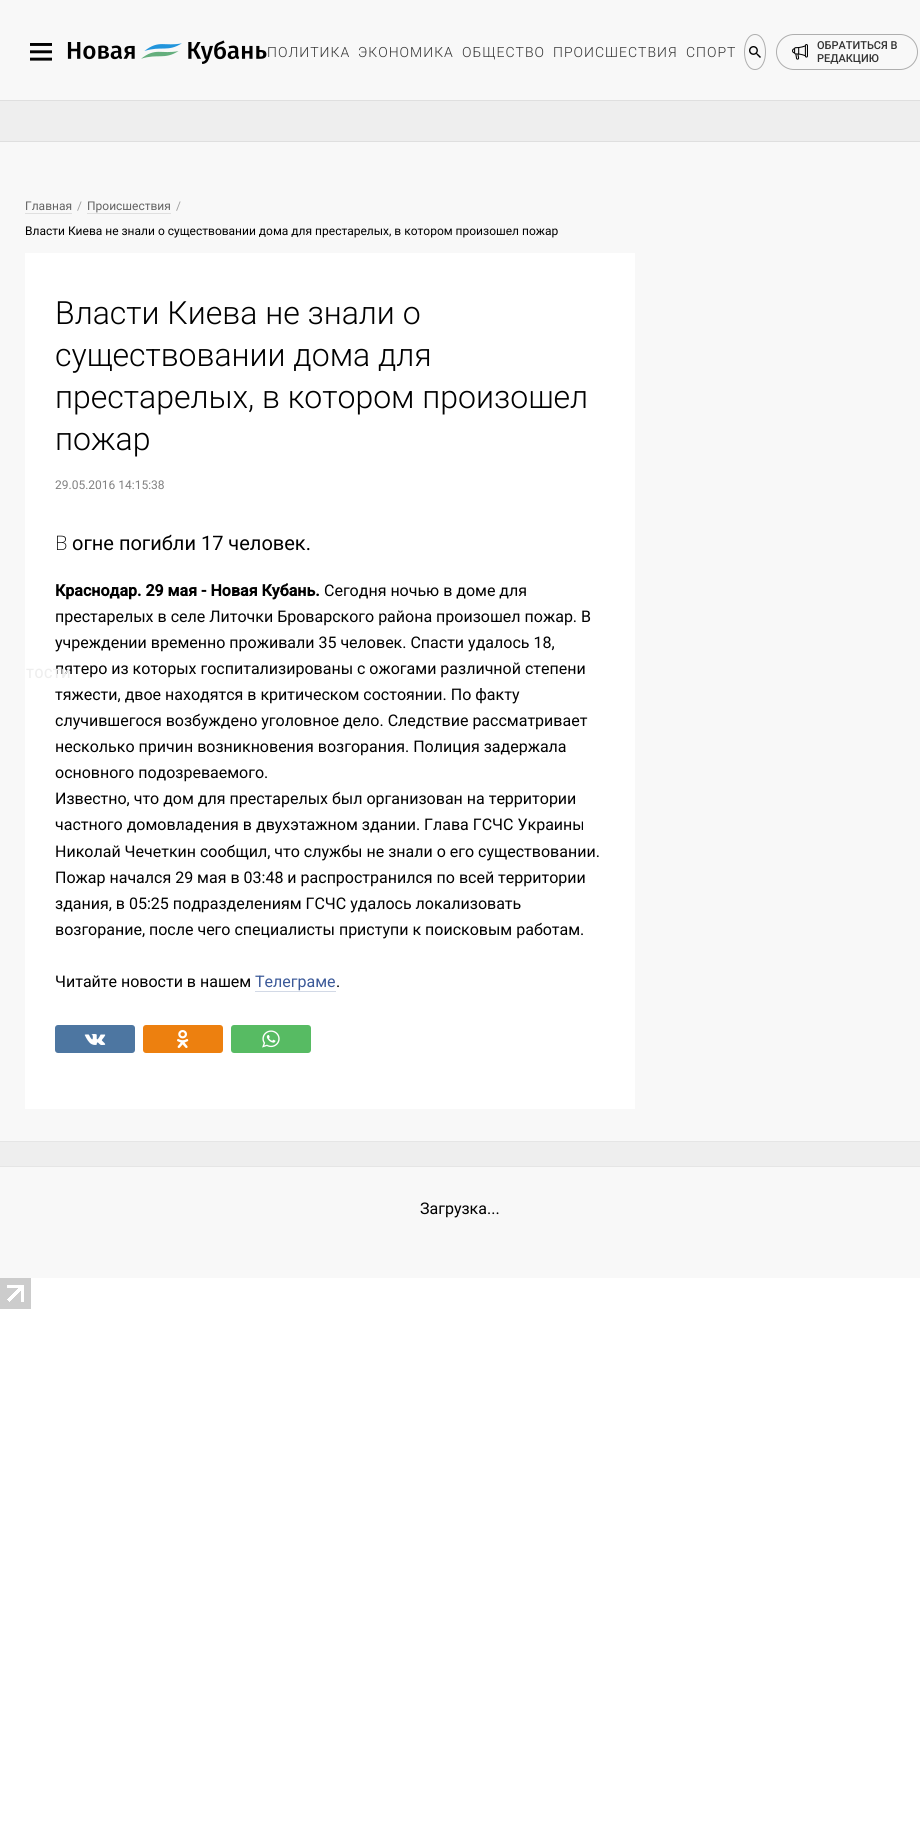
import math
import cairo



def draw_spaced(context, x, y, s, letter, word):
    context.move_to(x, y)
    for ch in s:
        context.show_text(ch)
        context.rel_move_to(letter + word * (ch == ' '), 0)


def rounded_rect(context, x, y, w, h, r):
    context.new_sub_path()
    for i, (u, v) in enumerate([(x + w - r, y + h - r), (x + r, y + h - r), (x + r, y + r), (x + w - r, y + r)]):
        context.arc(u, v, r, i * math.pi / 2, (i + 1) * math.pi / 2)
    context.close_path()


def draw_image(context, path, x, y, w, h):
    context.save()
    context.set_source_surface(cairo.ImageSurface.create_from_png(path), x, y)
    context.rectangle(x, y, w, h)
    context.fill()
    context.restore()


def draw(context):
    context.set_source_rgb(1, 1, 1)
    context.paint()
    context.set_source_rgb(248 / 255, 248 / 255, 248 / 255)
    context.rectangle(0, 0, 920, 1278)
    context.fill()
    draw_image(context, "images/1.png", 30, 43, 22, 18)
    draw_image(context, "images/2.png", 67, 40, 200, 24)
    context.new_path()
    context.move_to(755, 34.5)
    context.curve_to(769, 34.5, 769, 69.5, 755, 69.5)
    context.curve_to(741, 69.5, 741, 34.5, 755, 34.5)
    context.close_path()
    context.set_source_rgb(174 / 255, 174 / 255, 174 / 255)
    context.set_line_width(1)
    context.stroke()
    draw_image(context, "images/3.png", 749, 46, 12, 12)
    rounded_rect(context, 776.5, 34.5, 141, 35, 17.5)
    context.stroke()
    draw_image(context, "images/4.png", 792, 44, 16, 16)
    context.set_source_rgb(238 / 255, 238 / 255, 238 / 255)
    context.rectangle(0, 101, 920, 40)
    context.fill()
    context.set_source_rgb(223 / 255, 223 / 255, 223 / 255)
    context.rectangle(0, 100, 920, 1)
    context.fill()
    context.rectangle(0, 141, 920, 1)
    context.fill()
    context.rectangle(25, 213, 47, 1)
    context.fill()
    context.rectangle(87, 213, 84, 1)
    context.fill()
    context.set_source_rgb(1, 1, 1)
    context.rectangle(25, 253, 610, 856)
    context.fill()
    context.set_source_rgb(210 / 255, 217 / 255, 230 / 255)
    context.rectangle(255, 991, 81, 1)
    context.fill()
    context.set_source_rgb(77 / 255, 118 / 255, 161 / 255)
    rounded_rect(context, 55, 1025, 80, 28, 3)
    context.fill()
    draw_image(context, "images/5.png", 84, 1034, 22, 11)
    context.set_source_rgb(237 / 255, 128 / 255, 15 / 255)
    rounded_rect(context, 143, 1025, 80, 28, 3)
    context.fill()
    draw_image(context, "images/6.png", 177, 1030, 12, 18)
    context.set_source_rgb(87 / 255, 187 / 255, 99 / 255)
    rounded_rect(context, 231, 1025, 80, 28, 3)
    context.fill()
    draw_image(context, "images/7.png", 262, 1030, 18, 18)
    context.set_source_rgb(238 / 255, 238 / 255, 238 / 255)
    context.rectangle(0, 1142, 920, 24)
    context.fill()
    context.set_source_rgb(229 / 255, 229 / 255, 229 / 255)
    context.rectangle(0, 1141, 920, 1)
    context.fill()
    context.rectangle(0, 1166, 920, 1)
    context.fill()
    draw_image(context, "images/8.png", 0, 1278, 31, 31)
    context.select_font_face("Roboto Light")
    context.set_font_size(14)
    context.set_source_rgb(51 / 255, 51 / 255, 51 / 255)
    draw_spaced(context, 267, 57, "ПОЛИТИКА", 1, 0)
    draw_spaced(context, 358, 57, "ЭКОНОМИКА", 1, 0)
    draw_spaced(context, 462, 57, "ОБЩЕСТВО", 1, 0)
    draw_spaced(context, 553, 57, "ПРОИСШЕСТВИЯ", 1, 0)
    draw_spaced(context, 686, 57, "СПОРТ", 1, 0)
    context.select_font_face("Roboto Medium")
    context.set_font_size(11)
    context.move_to(817, 49)
    context.show_text("ОБРАТИТЬСЯ В")
    context.move_to(817, 62)
    context.show_text("РЕДАКЦИЮ")
    context.select_font_face("Roboto")
    context.set_font_size(12)
    context.set_source_rgb(99 / 255, 99 / 255, 99 / 255)
    context.move_to(25, 210)
    context.show_text("Главная")
    context.set_source_rgb(158 / 255, 158 / 255, 158 / 255)
    context.move_to(77, 210)
    context.show_text("/")
    context.set_source_rgb(99 / 255, 99 / 255, 99 / 255)
    context.move_to(87, 210)
    context.show_text("Проиcшествия")
    context.set_source_rgb(158 / 255, 158 / 255, 158 / 255)
    context.move_to(176, 210)
    context.show_text("/")
    context.set_source_rgb(0, 0, 0)
    context.move_to(25, 235)
    context.show_text("Власти Киева не знали о существовании дома для престарелых, в котором произошел пожар")
    context.select_font_face("Roboto Light")
    context.set_font_size(32)
    context.move_to(55, 324)
    context.show_text("Власти Киева не знали о")
    context.move_to(55, 366)
    context.show_text("существовании дома для")
    context.move_to(55, 408)
    context.show_text("престарелых, в котором произошел")
    context.move_to(55, 450)
    context.show_text("пожар")
    context.select_font_face("Roboto")
    context.set_font_size(12)
    context.set_source_rgb(128 / 255, 128 / 255, 128 / 255)
    context.move_to(55, 489)
    context.show_text("29.05.2016 14:15:38")
    context.select_font_face("Noto Sans ExtraLight")
    context.set_font_size(20)
    context.set_source_rgb(0, 0, 0)
    context.move_to(55, 550)
    context.show_text("В")
    context.select_font_face("Roboto")
    context.move_to(72, 550)
    context.show_text("огне погибли 17 человек.")
    context.select_font_face("Roboto", cairo.FontSlant.NORMAL, cairo.FontWeight.BOLD)
    context.set_font_size(16)
    context.move_to(55, 596)
    context.show_text("Краснодар. 29 мая - Новая Кубань.")
    context.select_font_face("Roboto")
    context.move_to(324, 596)
    context.show_text("Сегодня ночью в доме для")
    context.move_to(55, 622)
    context.show_text("престарелых в селе Литочки Броварского района произошел пожар. В")
    context.move_to(55, 648)
    context.show_text("учреждении временно проживали 35 человек. Спасти удалось 18,")
    context.move_to(55, 674)
    context.show_text("пятеро из которых госпитализированы с ожогами различной степени")
    context.move_to(55, 700)
    context.show_text("тяжести, двое находятся в критическом состоянии. По факту")
    context.move_to(55, 726)
    context.show_text("случившегося возбуждено уголовное дело. Следствие рассматривает")
    context.move_to(55, 752)
    context.show_text("несколько причин возникновения возгорания. Полиция задержала")
    context.move_to(55, 778)
    context.show_text("основного подозреваемого.")
    context.move_to(55, 804)
    context.show_text("Известно, что дом для престарелых был организован на территории")
    context.move_to(55, 830)
    context.show_text("частного домовладения в двухэтажном здании. Глава ГСЧС Украины")
    context.move_to(55, 857)
    context.show_text("Николай Чечеткин сообщил, что службы не знали о его существовании.")
    context.move_to(55, 883)
    context.show_text("Пожар начался 29 мая в 03:48 и распространился по всей территории")
    context.move_to(55, 909)
    context.show_text("здания, в 05:25 подразделениям ГСЧС удалось локализовать")
    context.move_to(55, 935)
    context.show_text("возгорание, после чего специалисты приступи к поисковым работам.")
    context.move_to(55, 987)
    context.show_text("Читайте новости в нашем")
    context.set_source_rgb(59 / 255, 89 / 255, 152 / 255)
    context.move_to(255, 987)
    context.show_text("Телеграме")
    context.set_source_rgb(0, 0, 0)
    context.move_to(336, 987)
    context.show_text(".")
    context.move_to(420, 1214)
    context.show_text("Загрузка...")
    context.select_font_face("Roboto Medium")
    context.set_font_size(13)
    context.set_source_rgb(238 / 255, 238 / 255, 238 / 255)
    draw_spaced(context, 26, 678, "ТОСТИ", 0.5, 0)


surface = cairo.ImageSurface(cairo.Format.RGB24, 920, 1848)
context = cairo.Context(surface)
options = cairo.FontOptions()
options.set_hint_metrics(cairo.HintMetrics.OFF)
options.set_hint_style(cairo.HintStyle.NONE)
context.set_font_options(options)
context.set_miter_limit(4)
draw(context)
surface.write_to_png("out.png")
